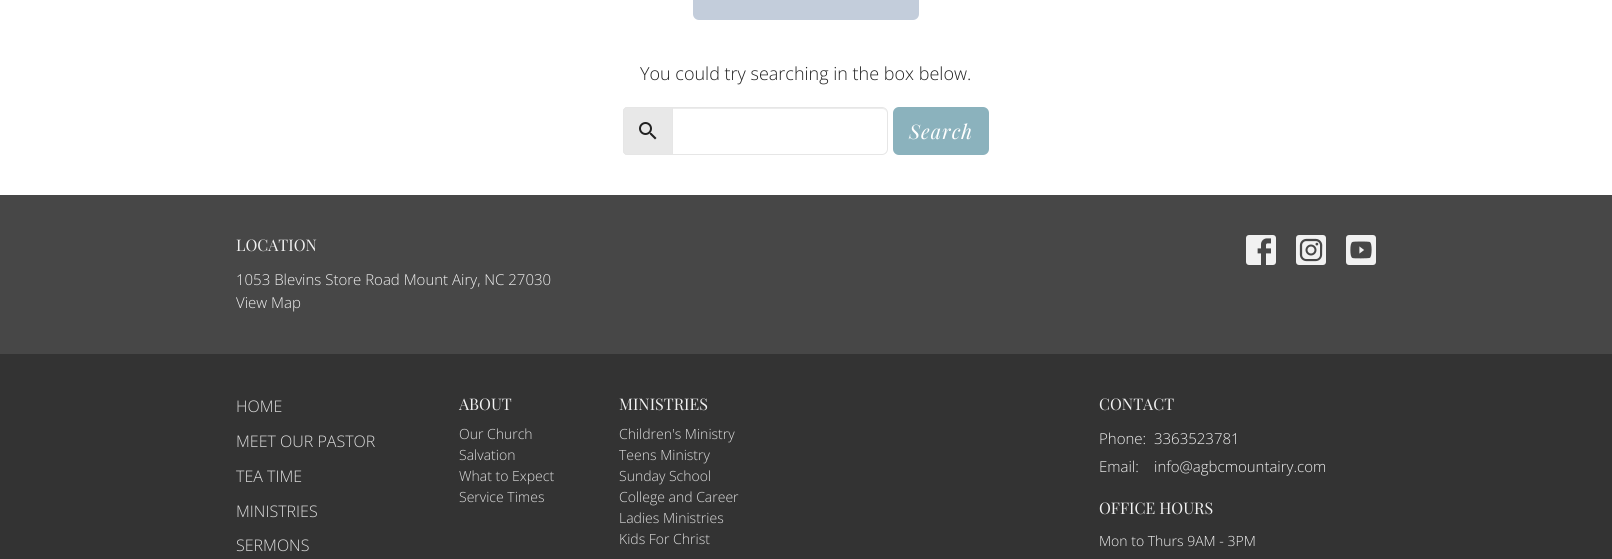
import math
import cairo



def draw_spaced(context, x, y, s, letter, word):
    context.move_to(x, y)
    for ch in s:
        context.show_text(ch)
        context.rel_move_to(letter + word * (ch == ' '), 0)


def rounded_rect(context, x, y, w, h, r):
    context.new_sub_path()
    for i, (u, v) in enumerate([(x + w - r, y + h - r), (x + r, y + h - r), (x + r, y + r), (x + w - r, y + r)]):
        context.arc(u, v, r, i * math.pi / 2, (i + 1) * math.pi / 2)
    context.close_path()


def draw_image(context, path, x, y, w, h):
    context.save()
    context.set_source_surface(cairo.ImageSurface.create_from_png(path), x, y)
    context.rectangle(x, y, w, h)
    context.fill()
    context.restore()


def draw(context):
    context.set_source_rgb(1, 1, 1)
    context.paint()
    context.set_source_rgb(195 / 255, 205 / 255, 219 / 255)
    rounded_rect(context, 693, -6, 226, 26, 6)
    context.fill()
    context.set_source_rgb(232 / 255, 232 / 255, 232 / 255)
    context.new_path()
    context.move_to(627, 107)
    context.line_to(672, 107)
    context.line_to(672, 155)
    context.line_to(627, 155)
    context.curve_to(625, 155, 623, 153, 623, 151)
    context.line_to(623, 111)
    context.curve_to(623, 109, 625, 107, 627, 107)
    context.close_path()
    context.fill()
    context.set_source_rgb(230 / 255, 230 / 255, 230 / 255)
    context.set_fill_rule(cairo.FillRule.EVEN_ODD)
    context.new_path()
    context.move_to(627, 107)
    context.line_to(672, 107)
    context.line_to(672, 155)
    context.line_to(627, 155)
    context.curve_to(625, 155, 623, 153, 623, 151)
    context.line_to(623, 111)
    context.curve_to(623, 109, 625, 107, 627, 107)
    context.close_path()
    context.move_to(627, 108)
    context.line_to(672, 108)
    context.line_to(672, 154)
    context.line_to(627, 154)
    context.curve_to(625, 154, 624, 153, 624, 151)
    context.line_to(624, 111)
    context.curve_to(624, 109, 625, 108, 627, 108)
    context.close_path()
    context.fill()
    draw_image(context, "images/1.png", 639, 122, 18, 18)
    context.set_source_rgb(236 / 255, 236 / 255, 236 / 255)
    context.set_fill_rule(cairo.FillRule.WINDING)
    context.new_path()
    context.move_to(673, 109)
    context.line_to(882, 109)
    context.curve_to(885, 109, 887, 111, 887, 114)
    context.curve_to(887, 111, 886, 109, 883, 108)
    context.line_to(673, 108)
    context.close_path()
    context.fill()
    context.new_path()
    context.move_to(672.5, 107.5)
    context.line_to(882, 107.5)
    context.curve_to(885, 107.5, 887.5, 110, 887.5, 113)
    context.line_to(887.5, 149)
    context.curve_to(887.5, 152, 885, 154.5, 882, 154.5)
    context.line_to(672.5, 154.5)
    context.close_path()
    context.set_source_rgb(230 / 255, 230 / 255, 230 / 255)
    context.set_line_width(1)
    context.stroke()
    context.set_source_rgb(139 / 255, 178 / 255, 189 / 255)
    rounded_rect(context, 893, 107, 96, 48, 6)
    context.fill()
    context.set_source_rgb(71 / 255, 71 / 255, 71 / 255)
    context.rectangle(0, 195, 1612, 159)
    context.fill()
    draw_image(context, "images/2.png", 1246, 235, 30, 30)
    draw_image(context, "images/3.png", 1296, 235, 30, 30)
    draw_image(context, "images/4.png", 1346, 235, 30, 30)
    context.set_source_rgb(51 / 255, 51 / 255, 51 / 255)
    context.rectangle(0, 354, 1612, 205)
    context.fill()
    context.select_font_face("Open Sans Light")
    context.set_font_size(18)
    context.set_source_rgb(34 / 255, 34 / 255, 34 / 255)
    context.move_to(640, 80)
    context.show_text("You could try searching in the box below.")
    context.select_font_face("Playfair Display", cairo.FontSlant.ITALIC)
    context.set_font_size(20)
    context.set_source_rgb(1, 1, 1)
    draw_spaced(context, 909, 139, "Search", 1, 0)
    context.select_font_face("Playfair Display")
    context.set_font_size(16)
    context.set_source_rgb(241 / 255, 241 / 255, 241 / 255)
    context.move_to(236, 251)
    context.show_text("LOCATION")
    context.select_font_face("Open Sans Light")
    context.set_font_size(15)
    context.move_to(236, 285)
    context.show_text("1053 Blevins Store Road Mount Airy, NC 27030")
    context.move_to(236, 308)
    context.show_text("View Map")
    context.set_font_size(16)
    context.set_source_rgb(222 / 255, 222 / 255, 222 / 255)
    context.move_to(236, 412)
    context.show_text("HOME")
    context.move_to(236, 447)
    context.show_text("MEET OUR PASTOR")
    context.move_to(236, 482)
    context.show_text("TEA TIME")
    context.move_to(236, 517)
    context.show_text("MINISTRIES")
    context.move_to(236, 551)
    context.show_text("SERMONS")
    context.select_font_face("Playfair Display")
    context.set_source_rgb(241 / 255, 241 / 255, 241 / 255)
    context.move_to(459, 410)
    context.show_text("ABOUT")
    context.select_font_face("Open Sans Light")
    context.set_font_size(14)
    context.set_source_rgb(222 / 255, 222 / 255, 222 / 255)
    context.move_to(459, 439)
    context.show_text("Our Church")
    context.move_to(459, 460)
    context.show_text("Salvation")
    context.move_to(459, 481)
    context.show_text("What to Expect")
    context.move_to(459, 502)
    context.show_text("Service Times")
    context.select_font_face("Playfair Display")
    context.set_font_size(16)
    context.set_source_rgb(241 / 255, 241 / 255, 241 / 255)
    context.move_to(619, 410)
    context.show_text("MINISTRIES")
    context.select_font_face("Open Sans Light")
    context.set_font_size(14)
    context.set_source_rgb(222 / 255, 222 / 255, 222 / 255)
    context.move_to(619, 439)
    context.show_text("Children's Ministry")
    context.move_to(619, 460)
    context.show_text("Teens Ministry")
    context.move_to(619, 481)
    context.show_text("Sunday School")
    context.move_to(619, 502)
    context.show_text("College and Career")
    context.move_to(619, 523)
    context.show_text("Ladies Ministries")
    context.move_to(619, 544)
    context.show_text("Kids For Christ")
    context.select_font_face("Playfair Display")
    context.set_font_size(16)
    context.set_source_rgb(241 / 255, 241 / 255, 241 / 255)
    context.move_to(1099, 410)
    context.show_text("CONTACT")
    context.select_font_face("Open Sans Light")
    context.set_font_size(15)
    context.move_to(1099, 444)
    context.show_text("Phone:")
    context.move_to(1154, 444)
    context.show_text("3363523781")
    context.move_to(1099, 472)
    context.show_text("Email:")
    context.move_to(1154, 472)
    context.show_text("info@agbcmountairy.com")
    context.select_font_face("Playfair Display")
    context.set_font_size(16)
    context.move_to(1099, 514)
    context.show_text("OFFICE HOURS")
    context.select_font_face("Open Sans Light")
    context.set_font_size(14)
    context.move_to(1099, 546)
    context.show_text("Mon to Thurs 9AM - 3PM")


surface = cairo.ImageSurface(cairo.Format.RGB24, 1612, 559)
context = cairo.Context(surface)
options = cairo.FontOptions()
options.set_hint_metrics(cairo.HintMetrics.OFF)
options.set_hint_style(cairo.HintStyle.NONE)
context.set_font_options(options)
context.set_miter_limit(4)
draw(context)
surface.write_to_png("out.png")
